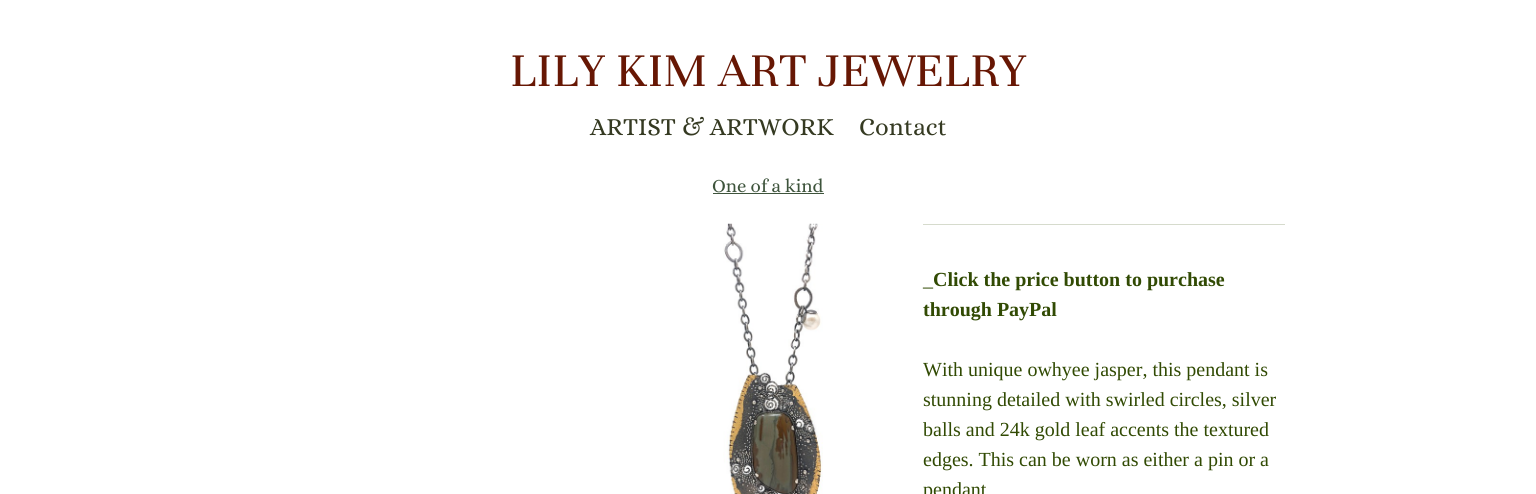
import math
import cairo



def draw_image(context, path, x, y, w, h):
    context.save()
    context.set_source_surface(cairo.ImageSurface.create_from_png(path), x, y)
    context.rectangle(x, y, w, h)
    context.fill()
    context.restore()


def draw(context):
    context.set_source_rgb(1, 1, 1)
    context.paint()
    context.set_source_rgb(62 / 255, 84 / 255, 60 / 255)
    context.rectangle(713, 193, 111, 1)
    context.fill()
    draw_image(context, "images/1.png", 723, 223, 100, 271)
    context.set_source_rgb(214 / 255, 219 / 255, 205 / 255)
    context.rectangle(923, 224, 362, 1)
    context.fill()
    context.select_font_face("Unna")
    context.set_font_size(51.25)
    context.set_source_rgb(103 / 255, 23 / 255, 4 / 255)
    context.move_to(510, 86)
    context.show_text("LILY KIM ART JEWELRY")
    context.select_font_face("Alice")
    context.set_font_size(25)
    context.set_source_rgb(53 / 255, 58 / 255, 34 / 255)
    context.move_to(590, 135)
    context.show_text("ARTIST & ARTWORK")
    context.move_to(859, 135)
    context.show_text("Contact")
    context.set_font_size(18.75)
    context.set_source_rgb(62 / 255, 84 / 255, 60 / 255)
    context.move_to(712, 192)
    context.show_text("One of a kind")
    context.select_font_face("Liberation Serif")
    context.set_font_size(20)
    context.set_source_rgb(49 / 255, 74 / 255, 3 / 255)
    context.move_to(923, 286)
    context.show_text("_")
    context.select_font_face("Liberation Serif", cairo.FontSlant.NORMAL, cairo.FontWeight.BOLD)
    context.move_to(933, 286)
    context.show_text("Click the price button to purchase")
    context.move_to(923, 316)
    context.show_text("through PayPal")
    context.select_font_face("Liberation Serif")
    context.move_to(923, 376)
    context.show_text("With unique owhyee jasper, this pendant is")
    context.move_to(923, 406)
    context.show_text("stunning detailed with swirled circles, silver")
    context.move_to(923, 436)
    context.show_text("balls and 24k gold leaf accents the textured")
    context.move_to(923, 466)
    context.show_text("edges. This can be worn as either a pin or a")
    context.move_to(923, 496)
    context.show_text("pendant")


surface = cairo.ImageSurface(cairo.Format.RGB24, 1536, 494)
context = cairo.Context(surface)
options = cairo.FontOptions()
options.set_hint_metrics(cairo.HintMetrics.OFF)
options.set_hint_style(cairo.HintStyle.NONE)
context.set_font_options(options)
context.set_miter_limit(4)
draw(context)
surface.write_to_png("out.png")
